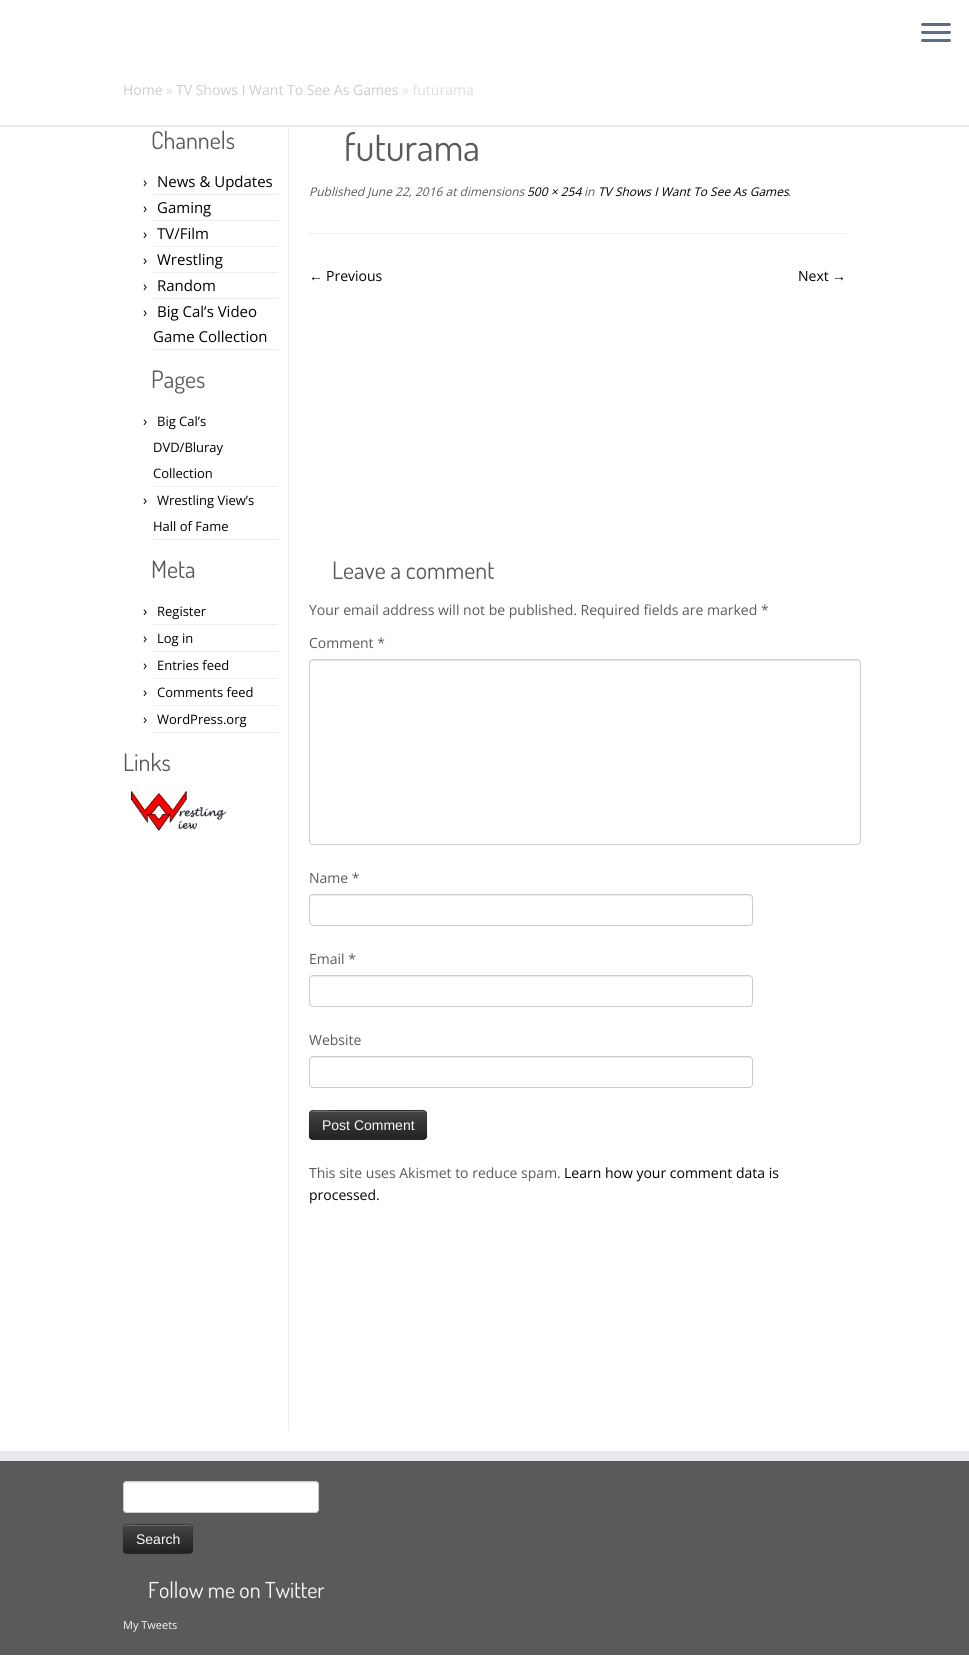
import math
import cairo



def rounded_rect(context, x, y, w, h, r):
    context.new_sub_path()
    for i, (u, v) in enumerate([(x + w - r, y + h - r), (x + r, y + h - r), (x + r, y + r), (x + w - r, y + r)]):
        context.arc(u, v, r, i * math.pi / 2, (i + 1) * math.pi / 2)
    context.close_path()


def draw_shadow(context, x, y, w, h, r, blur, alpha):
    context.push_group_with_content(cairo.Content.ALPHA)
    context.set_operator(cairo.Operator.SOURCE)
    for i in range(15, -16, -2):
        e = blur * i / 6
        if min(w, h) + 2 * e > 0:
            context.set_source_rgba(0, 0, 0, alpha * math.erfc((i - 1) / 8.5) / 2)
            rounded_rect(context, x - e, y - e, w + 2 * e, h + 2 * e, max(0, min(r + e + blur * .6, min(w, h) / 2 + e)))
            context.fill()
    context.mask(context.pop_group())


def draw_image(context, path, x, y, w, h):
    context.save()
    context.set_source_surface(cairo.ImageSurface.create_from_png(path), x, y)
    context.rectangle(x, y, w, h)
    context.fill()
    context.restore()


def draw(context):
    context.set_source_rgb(1, 1, 1)
    context.paint()
    context.set_source_rgb(238 / 255, 238 / 255, 238 / 255)
    context.rectangle(288, 122, 1, 1309)
    context.fill()
    context.set_source_rgb(252 / 255, 252 / 255, 252 / 255)
    context.rectangle(288, 122, 1, 5)
    context.fill()
    context.set_source_rgb(233 / 255, 234 / 255, 238 / 255)
    context.rectangle(0, 125, 969, 2)
    context.fill()
    context.set_source_rgb(95 / 255, 111 / 255, 129 / 255)
    rounded_rect(context, 921, 23, 30, 3, 1.5)
    context.fill()
    rounded_rect(context, 921, 31, 30, 3, 1.5)
    context.fill()
    rounded_rect(context, 921, 39, 30, 3, 1.5)
    context.fill()
    context.set_source_rgb(238 / 255, 238 / 255, 238 / 255)
    context.rectangle(153, 194, 125, 1)
    context.fill()
    context.rectangle(153, 220, 125, 1)
    context.fill()
    context.rectangle(153, 246, 125, 1)
    context.fill()
    context.rectangle(153, 272, 125, 1)
    context.fill()
    context.rectangle(153, 298, 125, 1)
    context.fill()
    context.rectangle(153, 349, 125, 1)
    context.fill()
    context.rectangle(153, 486, 125, 1)
    context.fill()
    context.rectangle(153, 539, 125, 1)
    context.fill()
    context.rectangle(153, 624, 125, 1)
    context.fill()
    context.rectangle(153, 651, 125, 1)
    context.fill()
    context.rectangle(153, 678, 125, 1)
    context.fill()
    context.rectangle(153, 705, 125, 1)
    context.fill()
    context.rectangle(153, 732, 125, 1)
    context.fill()
    draw_image(context, "images/1.png", 131, 791, 96, 40)
    context.rectangle(309, 233, 538, 1)
    context.fill()
    context.set_source_rgb(236 / 255, 236 / 255, 236 / 255)
    context.new_path()
    context.move_to(313, 661)
    context.line_to(857, 661)
    context.curve_to(859, 661, 860, 662, 860, 664)
    context.line_to(860, 663)
    context.curve_to(860, 661, 859, 660, 857, 660)
    context.line_to(313, 660)
    context.curve_to(311, 660, 310, 661, 310, 663)
    context.line_to(310, 664)
    context.curve_to(310, 662, 311, 661, 313, 661)
    context.close_path()
    context.fill()
    rounded_rect(context, 309.5, 659.5, 551, 185, 3.5)
    context.set_source_rgb(204 / 255, 204 / 255, 204 / 255)
    context.set_line_width(1)
    context.stroke()
    context.set_source_rgb(236 / 255, 236 / 255, 236 / 255)
    context.new_path()
    context.move_to(313, 896)
    context.line_to(749, 896)
    context.curve_to(751, 896, 752, 897, 752, 899)
    context.line_to(752, 897)
    context.line_to(750, 895)
    context.line_to(313, 895)
    context.curve_to(311, 895, 310, 897, 310, 899)
    context.curve_to(310, 897, 311, 896, 313, 896)
    context.close_path()
    context.fill()
    rounded_rect(context, 309.5, 894.5, 443, 31, 3.5)
    context.set_source_rgb(204 / 255, 204 / 255, 204 / 255)
    context.stroke()
    context.set_source_rgb(236 / 255, 236 / 255, 236 / 255)
    context.new_path()
    context.move_to(313, 977)
    context.line_to(749, 977)
    context.curve_to(751, 977, 752, 978, 752, 980)
    context.line_to(752, 978)
    context.line_to(750, 976)
    context.line_to(313, 976)
    context.curve_to(311, 976, 310, 978, 310, 980)
    context.curve_to(310, 978, 311, 977, 313, 977)
    context.close_path()
    context.fill()
    rounded_rect(context, 309.5, 975.5, 443, 31, 3.5)
    context.set_source_rgb(204 / 255, 204 / 255, 204 / 255)
    context.stroke()
    context.set_source_rgb(236 / 255, 236 / 255, 236 / 255)
    context.new_path()
    context.move_to(313, 1058)
    context.line_to(749, 1058)
    context.curve_to(751, 1058, 752, 1059, 752, 1061)
    context.line_to(752, 1059)
    context.line_to(750, 1057)
    context.line_to(313, 1057)
    context.curve_to(311, 1057, 310, 1059, 310, 1061)
    context.curve_to(310, 1059, 311, 1058, 313, 1058)
    context.close_path()
    context.fill()
    rounded_rect(context, 309.5, 1056.5, 443, 31, 3.5)
    context.set_source_rgb(204 / 255, 204 / 255, 204 / 255)
    context.stroke()
    context.set_source_rgb(0, 0, 0)
    draw_shadow(context, 309, 1111, 118, 30, 4, 1, 0.05)
    context.set_source_rgb(54 / 255, 54 / 255, 54 / 255)
    rounded_rect(context, 309, 1110, 118, 30, 4)
    context.fill()
    context.save()
    rounded_rect(context, 309, 1110, 118, 30, 4)
    context.clip()
    gradient = cairo.LinearGradient(368, 1111, 368, 1139)
    gradient.add_color_stop_rgba(0, 68 / 255, 68 / 255, 68 / 255, 1)
    gradient.add_color_stop_rgba(1, 34 / 255, 34 / 255, 34 / 255, 1)
    context.set_source(gradient)
    context.rectangle(309, 1111, 118, 28)
    context.fill()
    context.restore()
    context.set_source_rgba(1, 1, 1, 0.2)
    context.new_path()
    context.move_to(313, 1112)
    context.line_to(423, 1112)
    context.curve_to(425, 1112, 426, 1113, 426, 1115)
    context.curve_to(426, 1113, 425, 1111, 423, 1111)
    context.line_to(331, 1111)
    context.curve_to(330, 1111, 310, 1106, 310, 1115)
    context.curve_to(310, 1113, 311, 1112, 313, 1112)
    context.close_path()
    context.fill()
    context.new_path()
    context.move_to(425.5, 1138.5)
    context.line_to(423, 1139.5)
    context.line_to(312.5, 1139.5)
    context.line_to(310.5, 1138.5)
    context.set_source_rgba(0, 0, 0, 0.25)
    context.stroke()
    context.new_path()
    context.move_to(310.5, 1138.5)
    context.curve_to(308, 1136, 309.5, 1131.5, 309.5, 1128.5)
    context.curve_to(309.5, 1106, 306, 1110.5, 331.5, 1110.5)
    context.line_to(404.5, 1110.5)
    context.curve_to(430, 1110.5, 426.5, 1106, 426.5, 1128.5)
    context.curve_to(426.5, 1131.5, 428, 1136, 425.5, 1138.5)
    context.set_source_rgba(0, 0, 0, 0.1)
    context.stroke()
    context.set_source_rgb(90 / 255, 90 / 255, 90 / 255)
    context.rectangle(0, 1461, 969, 194)
    context.fill()
    context.set_source_rgb(233 / 255, 234 / 255, 238 / 255)
    context.rectangle(0, 1451, 969, 10)
    context.fill()
    context.set_source_rgb(1, 1, 1)
    rounded_rect(context, 123, 1481, 196, 32, 4)
    context.fill()
    context.set_source_rgb(236 / 255, 236 / 255, 236 / 255)
    context.new_path()
    context.move_to(127, 1483)
    context.line_to(315, 1483)
    context.curve_to(317, 1483, 318, 1484, 318, 1486)
    context.curve_to(318, 1484, 317, 1482, 315, 1482)
    context.line_to(127, 1482)
    context.curve_to(125, 1482, 124, 1484, 124, 1486)
    context.curve_to(124, 1484, 125, 1483, 127, 1483)
    context.close_path()
    context.fill()
    rounded_rect(context, 123.5, 1481.5, 195, 31, 3.5)
    context.set_source_rgb(204 / 255, 204 / 255, 204 / 255)
    context.stroke()
    context.set_source_rgb(54 / 255, 54 / 255, 54 / 255)
    rounded_rect(context, 123, 1524, 70, 30, 4)
    context.fill()
    context.save()
    rounded_rect(context, 123, 1524, 70, 30, 4)
    context.clip()
    gradient = cairo.LinearGradient(158, 1525, 158, 1553)
    gradient.add_color_stop_rgba(0, 68 / 255, 68 / 255, 68 / 255, 1)
    gradient.add_color_stop_rgba(1, 34 / 255, 34 / 255, 34 / 255, 1)
    context.set_source(gradient)
    context.rectangle(123, 1525, 70, 28)
    context.fill()
    context.restore()
    context.set_source_rgba(1, 1, 1, 0.2)
    context.new_path()
    context.move_to(127, 1526)
    context.line_to(189, 1526)
    context.curve_to(191, 1526, 192, 1527, 192, 1529)
    context.curve_to(192, 1522, 183, 1525, 179, 1525)
    context.line_to(137, 1525)
    context.curve_to(133, 1525, 124, 1522, 124, 1529)
    context.curve_to(124, 1527, 125, 1526, 127, 1526)
    context.close_path()
    context.fill()
    context.new_path()
    context.move_to(191.5, 1552.5)
    context.line_to(189.5, 1553.5)
    context.line_to(126.5, 1553.5)
    context.line_to(124.5, 1552.5)
    context.set_source_rgba(0, 0, 0, 0.25)
    context.stroke()
    context.new_path()
    context.move_to(124.5, 1552.5)
    context.curve_to(122.5, 1550.5, 123.5, 1542, 123.5, 1539)
    context.curve_to(123.5, 1523, 121, 1524.5, 137.5, 1524.5)
    context.line_to(178.5, 1524.5)
    context.curve_to(195, 1524.5, 192.5, 1523, 192.5, 1539)
    context.curve_to(192.5, 1542, 193.5, 1550.5, 191.5, 1552.5)
    context.set_source_rgba(0, 0, 0, 0.1)
    context.stroke()
    context.select_font_face("Open Sans")
    context.set_font_size(14)
    context.set_source_rgb(204 / 255, 204 / 255, 204 / 255)
    context.move_to(123, 95)
    context.show_text("Home")
    context.set_source_rgb(222 / 255, 222 / 255, 222 / 255)
    context.move_to(166, 95)
    context.show_text("»")
    context.set_source_rgb(204 / 255, 204 / 255, 204 / 255)
    context.move_to(176, 95)
    context.show_text("TV Shows I Want To See As Games")
    context.set_source_rgb(222 / 255, 222 / 255, 222 / 255)
    context.move_to(402, 95)
    context.show_text("» futurama")
    context.select_font_face("Dosis")
    context.set_font_size(24)
    context.set_source_rgb(90 / 255, 90 / 255, 90 / 255)
    context.move_to(151, 149)
    context.show_text("Channels")
    context.select_font_face("Open Sans")
    context.set_font_size(14)
    context.set_source_rgb(0, 0, 0)
    context.move_to(143, 187)
    context.show_text("›")
    context.set_font_size(15)
    context.move_to(157, 187)
    context.show_text("News & Updates")
    context.set_font_size(14)
    context.move_to(143, 213)
    context.show_text("›")
    context.set_font_size(15)
    context.move_to(157, 213)
    context.show_text("Gaming")
    context.set_font_size(14)
    context.move_to(143, 239)
    context.show_text("›")
    context.set_font_size(15)
    context.move_to(157, 239)
    context.show_text("TV/Film")
    context.set_font_size(14)
    context.move_to(143, 265)
    context.show_text("›")
    context.set_font_size(15)
    context.move_to(157, 265)
    context.show_text("Wrestling")
    context.set_font_size(14)
    context.move_to(143, 291)
    context.show_text("›")
    context.set_font_size(15)
    context.move_to(157, 291)
    context.show_text("Random")
    context.set_font_size(14)
    context.move_to(143, 317)
    context.show_text("›")
    context.set_font_size(15)
    context.move_to(157, 317)
    context.show_text("Big Cal’s Video")
    context.move_to(153, 342)
    context.show_text("Game Collection")
    context.select_font_face("Dosis")
    context.set_font_size(24)
    context.set_source_rgb(90 / 255, 90 / 255, 90 / 255)
    context.move_to(151, 388)
    context.show_text("Pages")
    context.select_font_face("Open Sans")
    context.set_font_size(14)
    context.set_source_rgb(0, 0, 0)
    context.move_to(143, 426)
    context.show_text("›")
    context.set_font_size(13)
    context.move_to(157, 426)
    context.show_text("Big Cal’s")
    context.move_to(153, 452)
    context.show_text("DVD/Bluray")
    context.move_to(153, 478)
    context.show_text("Collection")
    context.set_font_size(14)
    context.move_to(143, 505)
    context.show_text("›")
    context.set_font_size(13)
    context.move_to(157, 505)
    context.show_text("Wrestling View’s")
    context.move_to(153, 531)
    context.show_text("Hall of Fame")
    context.select_font_face("Dosis")
    context.set_font_size(24)
    context.set_source_rgb(90 / 255, 90 / 255, 90 / 255)
    context.move_to(151, 578)
    context.show_text("Meta")
    context.select_font_face("Open Sans")
    context.set_font_size(14)
    context.set_source_rgb(0, 0, 0)
    context.move_to(143, 616)
    context.show_text("›")
    context.set_font_size(13)
    context.move_to(157, 616)
    context.show_text("Register")
    context.set_font_size(14)
    context.move_to(143, 643)
    context.show_text("›")
    context.set_font_size(13)
    context.move_to(157, 643)
    context.show_text("Log in")
    context.set_font_size(14)
    context.move_to(143, 670)
    context.show_text("›")
    context.set_font_size(13)
    context.move_to(157, 670)
    context.show_text("Entries feed")
    context.set_font_size(14)
    context.move_to(143, 697)
    context.show_text("›")
    context.set_font_size(13)
    context.move_to(157, 697)
    context.show_text("Comments feed")
    context.set_font_size(14)
    context.move_to(143, 724)
    context.show_text("›")
    context.set_font_size(13)
    context.move_to(157, 724)
    context.show_text("WordPress.org")
    context.select_font_face("Dosis")
    context.set_font_size(24)
    context.set_source_rgb(90 / 255, 90 / 255, 90 / 255)
    context.move_to(123, 771)
    context.show_text("Links")
    context.set_font_size(38)
    context.move_to(344, 161)
    context.show_text("futurama")
    context.select_font_face("Open Sans", cairo.FontSlant.ITALIC)
    context.set_font_size(12)
    context.move_to(309, 196)
    context.show_text("Published June 22, 2016 at dimensions")
    context.set_source_rgb(0, 0, 0)
    context.move_to(527, 196)
    context.show_text("500 × 254")
    context.set_source_rgb(90 / 255, 90 / 255, 90 / 255)
    context.move_to(584, 196)
    context.show_text("in")
    context.set_source_rgb(0, 0, 0)
    context.move_to(598, 196)
    context.show_text("TV Shows I Want To See As Games")
    context.set_source_rgb(90 / 255, 90 / 255, 90 / 255)
    context.move_to(788, 196)
    context.show_text(".")
    context.select_font_face("Liberation Serif")
    context.set_font_size(14)
    context.set_source_rgb(0, 0, 0)
    context.move_to(309, 281)
    context.show_text("←")
    context.select_font_face("Open Sans")
    context.move_to(326, 281)
    context.show_text("Previous")
    context.move_to(798, 281)
    context.show_text("Next")
    context.select_font_face("Liberation Serif")
    context.move_to(832, 281)
    context.show_text("→")
    context.select_font_face("Dosis")
    context.set_font_size(24)
    context.set_source_rgb(90 / 255, 90 / 255, 90 / 255)
    context.move_to(332, 579)
    context.show_text("Leave a comment")
    context.select_font_face("Open Sans")
    context.set_font_size(14)
    context.move_to(309, 615)
    context.show_text("Your email address will not be published. Required fields are marked *")
    context.move_to(309, 648)
    context.show_text("Comment *")
    context.move_to(309, 883)
    context.show_text("Name *")
    context.move_to(309, 964)
    context.show_text("Email *")
    context.move_to(309, 1045)
    context.show_text("Website")
    context.select_font_face("Liberation Sans")
    context.set_source_rgb(250 / 255, 250 / 255, 250 / 255)
    context.move_to(322, 1130)
    context.show_text("Post Comment")
    context.select_font_face("Open Sans")
    context.set_source_rgb(90 / 255, 90 / 255, 90 / 255)
    context.move_to(309, 1178)
    context.show_text("This site uses Akismet to reduce spam.")
    context.set_source_rgb(0, 0, 0)
    context.move_to(564, 1178)
    context.show_text("Learn how your comment data is")
    context.move_to(309, 1200)
    context.show_text("processed.")
    context.select_font_face("Liberation Sans")
    context.set_source_rgb(250 / 255, 250 / 255, 250 / 255)
    context.move_to(136, 1544)
    context.show_text("Search")
    context.select_font_face("Dosis")
    context.set_font_size(22)
    context.move_to(148, 1598)
    context.show_text("Follow me on Twitter")
    context.select_font_face("Open Sans")
    context.set_font_size(11)
    context.move_to(123, 1629)
    context.show_text("My Tweets")


surface = cairo.ImageSurface(cairo.Format.RGB24, 969, 1657)
context = cairo.Context(surface)
options = cairo.FontOptions()
options.set_hint_metrics(cairo.HintMetrics.OFF)
options.set_hint_style(cairo.HintStyle.NONE)
context.set_font_options(options)
context.set_miter_limit(4)
draw(context)
surface.write_to_png("out.png")
